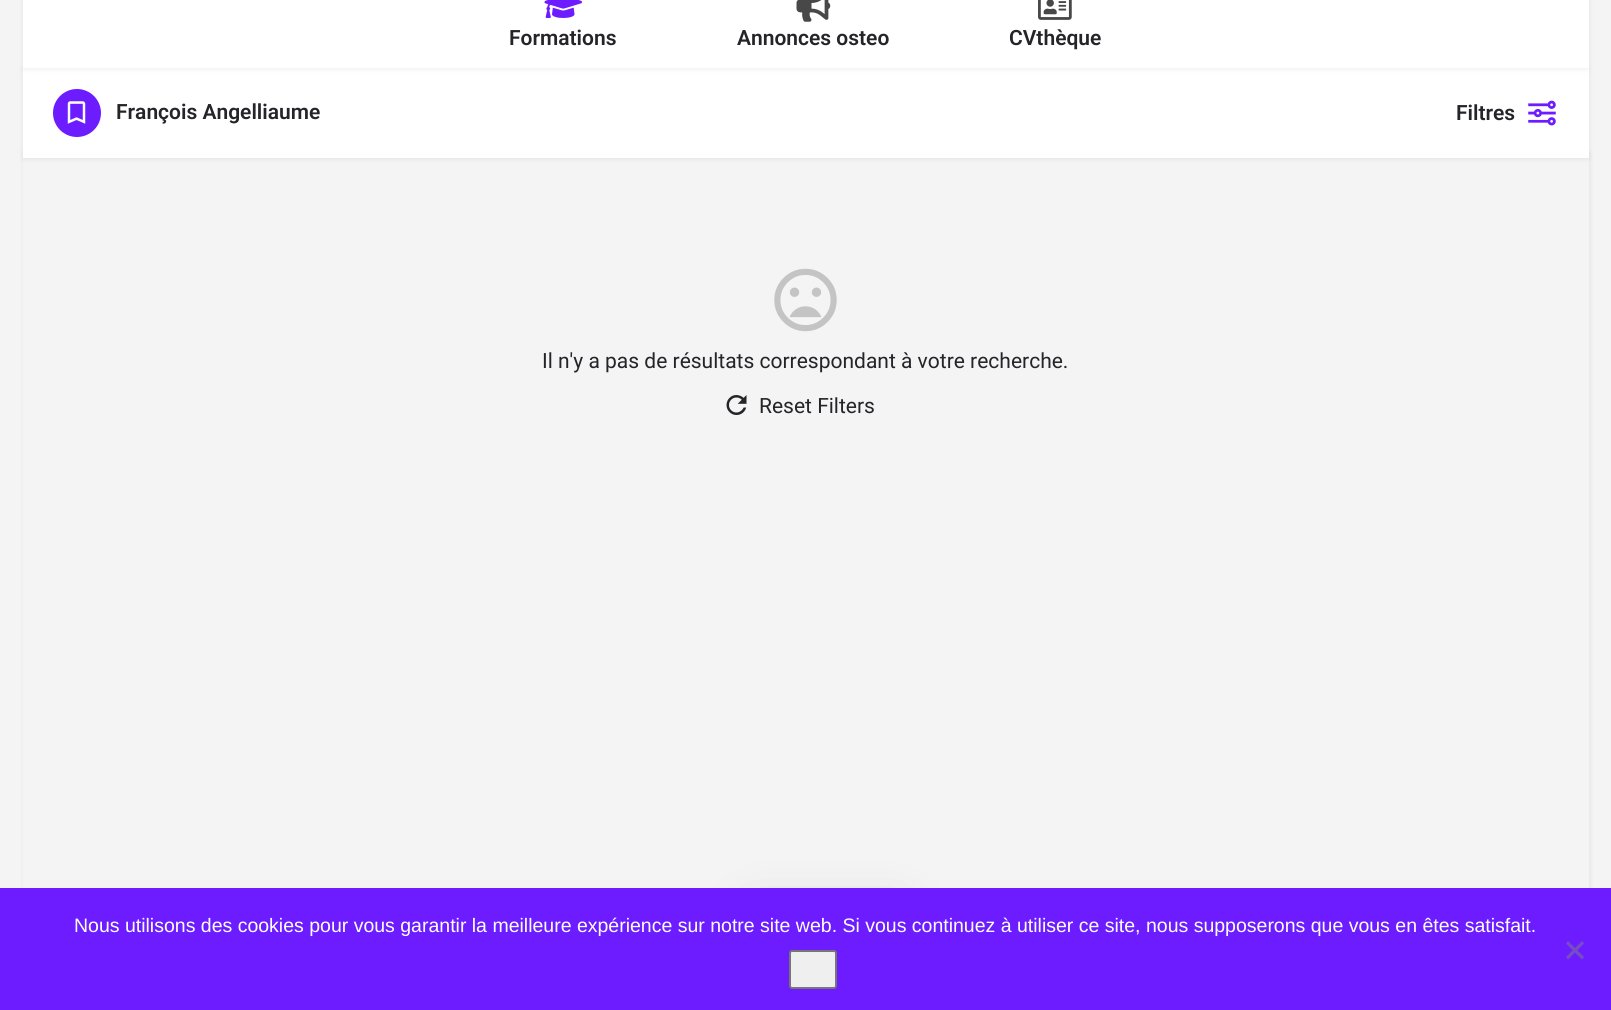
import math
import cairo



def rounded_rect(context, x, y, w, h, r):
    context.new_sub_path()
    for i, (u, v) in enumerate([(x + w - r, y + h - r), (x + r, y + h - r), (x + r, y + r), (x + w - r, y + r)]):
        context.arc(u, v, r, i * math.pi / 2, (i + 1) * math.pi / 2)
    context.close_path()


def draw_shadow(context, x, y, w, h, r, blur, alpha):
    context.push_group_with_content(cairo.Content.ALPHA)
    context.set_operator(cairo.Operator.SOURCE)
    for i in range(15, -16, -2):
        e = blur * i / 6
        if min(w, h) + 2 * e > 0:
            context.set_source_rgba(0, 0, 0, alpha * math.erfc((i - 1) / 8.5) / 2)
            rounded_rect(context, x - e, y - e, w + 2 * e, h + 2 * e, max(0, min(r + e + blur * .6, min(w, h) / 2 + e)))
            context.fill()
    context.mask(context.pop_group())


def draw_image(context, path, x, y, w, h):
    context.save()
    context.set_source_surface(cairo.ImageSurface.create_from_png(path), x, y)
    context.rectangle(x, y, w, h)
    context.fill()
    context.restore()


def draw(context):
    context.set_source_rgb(244 / 255, 244 / 255, 244 / 255)
    context.paint()
    context.set_source_rgb(0, 0, 0)
    draw_shadow(context, 24, 152, 1566, 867, 0, 3, 0.07)
    context.set_source_rgb(244 / 255, 244 / 255, 244 / 255)
    context.rectangle(23, 158, 1566, 730)
    context.fill()
    context.set_source_rgb(0, 0, 0)
    draw_shadow(context, 23, 69, 1566, 90, 0, 3, 0.07)
    context.set_source_rgb(1, 1, 1)
    context.rectangle(23, 68, 1566, 90)
    context.fill()
    context.set_source_rgb(0, 0, 0)
    draw_shadow(context, 23, -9, 1566, 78, 0, 3, 0.07)
    context.set_source_rgb(1, 1, 1)
    context.rectangle(23, 0, 1566, 68)
    context.fill()
    draw_image(context, "images/1.png", 544, 0, 38, 18)
    draw_image(context, "images/2.png", 796, 0, 35, 22)
    draw_image(context, "images/3.png", 1038, 0, 34, 20)
    context.set_source_rgb(108 / 255, 28 / 255, 1)
    context.arc(77, 113, 24, 0, 2 * math.pi)
    context.fill()
    draw_image(context, "images/4.png", 67, 101, 19, 23)
    draw_image(context, "images/5.png", 1528, 100, 28, 26)
    draw_image(context, "images/6.png", 774, 268, 63, 64)
    draw_image(context, "images/7.png", 726, 395, 21, 20)
    context.set_source_rgb(0, 0, 0)
    draw_shadow(context, 749, 915, 156, 60, 8, 25, 0.2)
    context.set_source_rgb(108 / 255, 28 / 255, 1)
    context.rectangle(0, 888, 1611, 122)
    context.fill()
    context.set_source_rgb(239 / 255, 239 / 255, 239 / 255)
    rounded_rect(context, 790, 951, 46, 37, 2)
    context.fill_preserve()
    context.set_source_rgb(118 / 255, 118 / 255, 118 / 255)
    context.stroke()
    context.set_source_rgb(118 / 255, 78 / 255, 192 / 255)
    context.new_path()
    context.move_to(1582, 941)
    context.line_to(1584, 943.5)
    context.line_to(1568, 959.5)
    context.line_to(1566, 957)
    context.close_path()
    context.fill()
    context.new_path()
    context.move_to(1566, 943.5)
    context.line_to(1568, 941)
    context.line_to(1584, 957)
    context.line_to(1582, 959.5)
    context.close_path()
    context.fill()
    context.select_font_face("Roboto SemiBold")
    context.set_font_size(21)
    context.set_source_rgb(36 / 255, 36 / 255, 41 / 255)
    context.move_to(509, 45)
    context.show_text("Formations")
    context.move_to(737, 45)
    context.show_text("Annonces osteo")
    context.move_to(1009, 45)
    context.show_text("CVthèque")
    context.move_to(116, 119)
    context.show_text("François Angelliaume")
    context.move_to(1456, 120)
    context.show_text("Filtres")
    context.select_font_face("Roboto")
    context.move_to(542, 368)
    context.show_text("Il n'y a pas de résultats correspondant à votre recherche.")
    context.move_to(759, 413)
    context.show_text("Reset Filters")
    context.select_font_face("Liberation Sans")
    context.set_font_size(19.5)
    context.set_source_rgb(1, 1, 1)
    context.move_to(74, 932)
    context.show_text("Nous utilisons des cookies pour vous garantir la meilleure expérience sur notre site web. Si vous continuez à utiliser ce site, nous supposerons que vous en êtes satisfait.")


surface = cairo.ImageSurface(cairo.Format.RGB24, 1611, 1010)
context = cairo.Context(surface)
options = cairo.FontOptions()
options.set_hint_metrics(cairo.HintMetrics.OFF)
options.set_hint_style(cairo.HintStyle.NONE)
context.set_font_options(options)
context.set_miter_limit(4)
draw(context)
surface.write_to_png("out.png")
